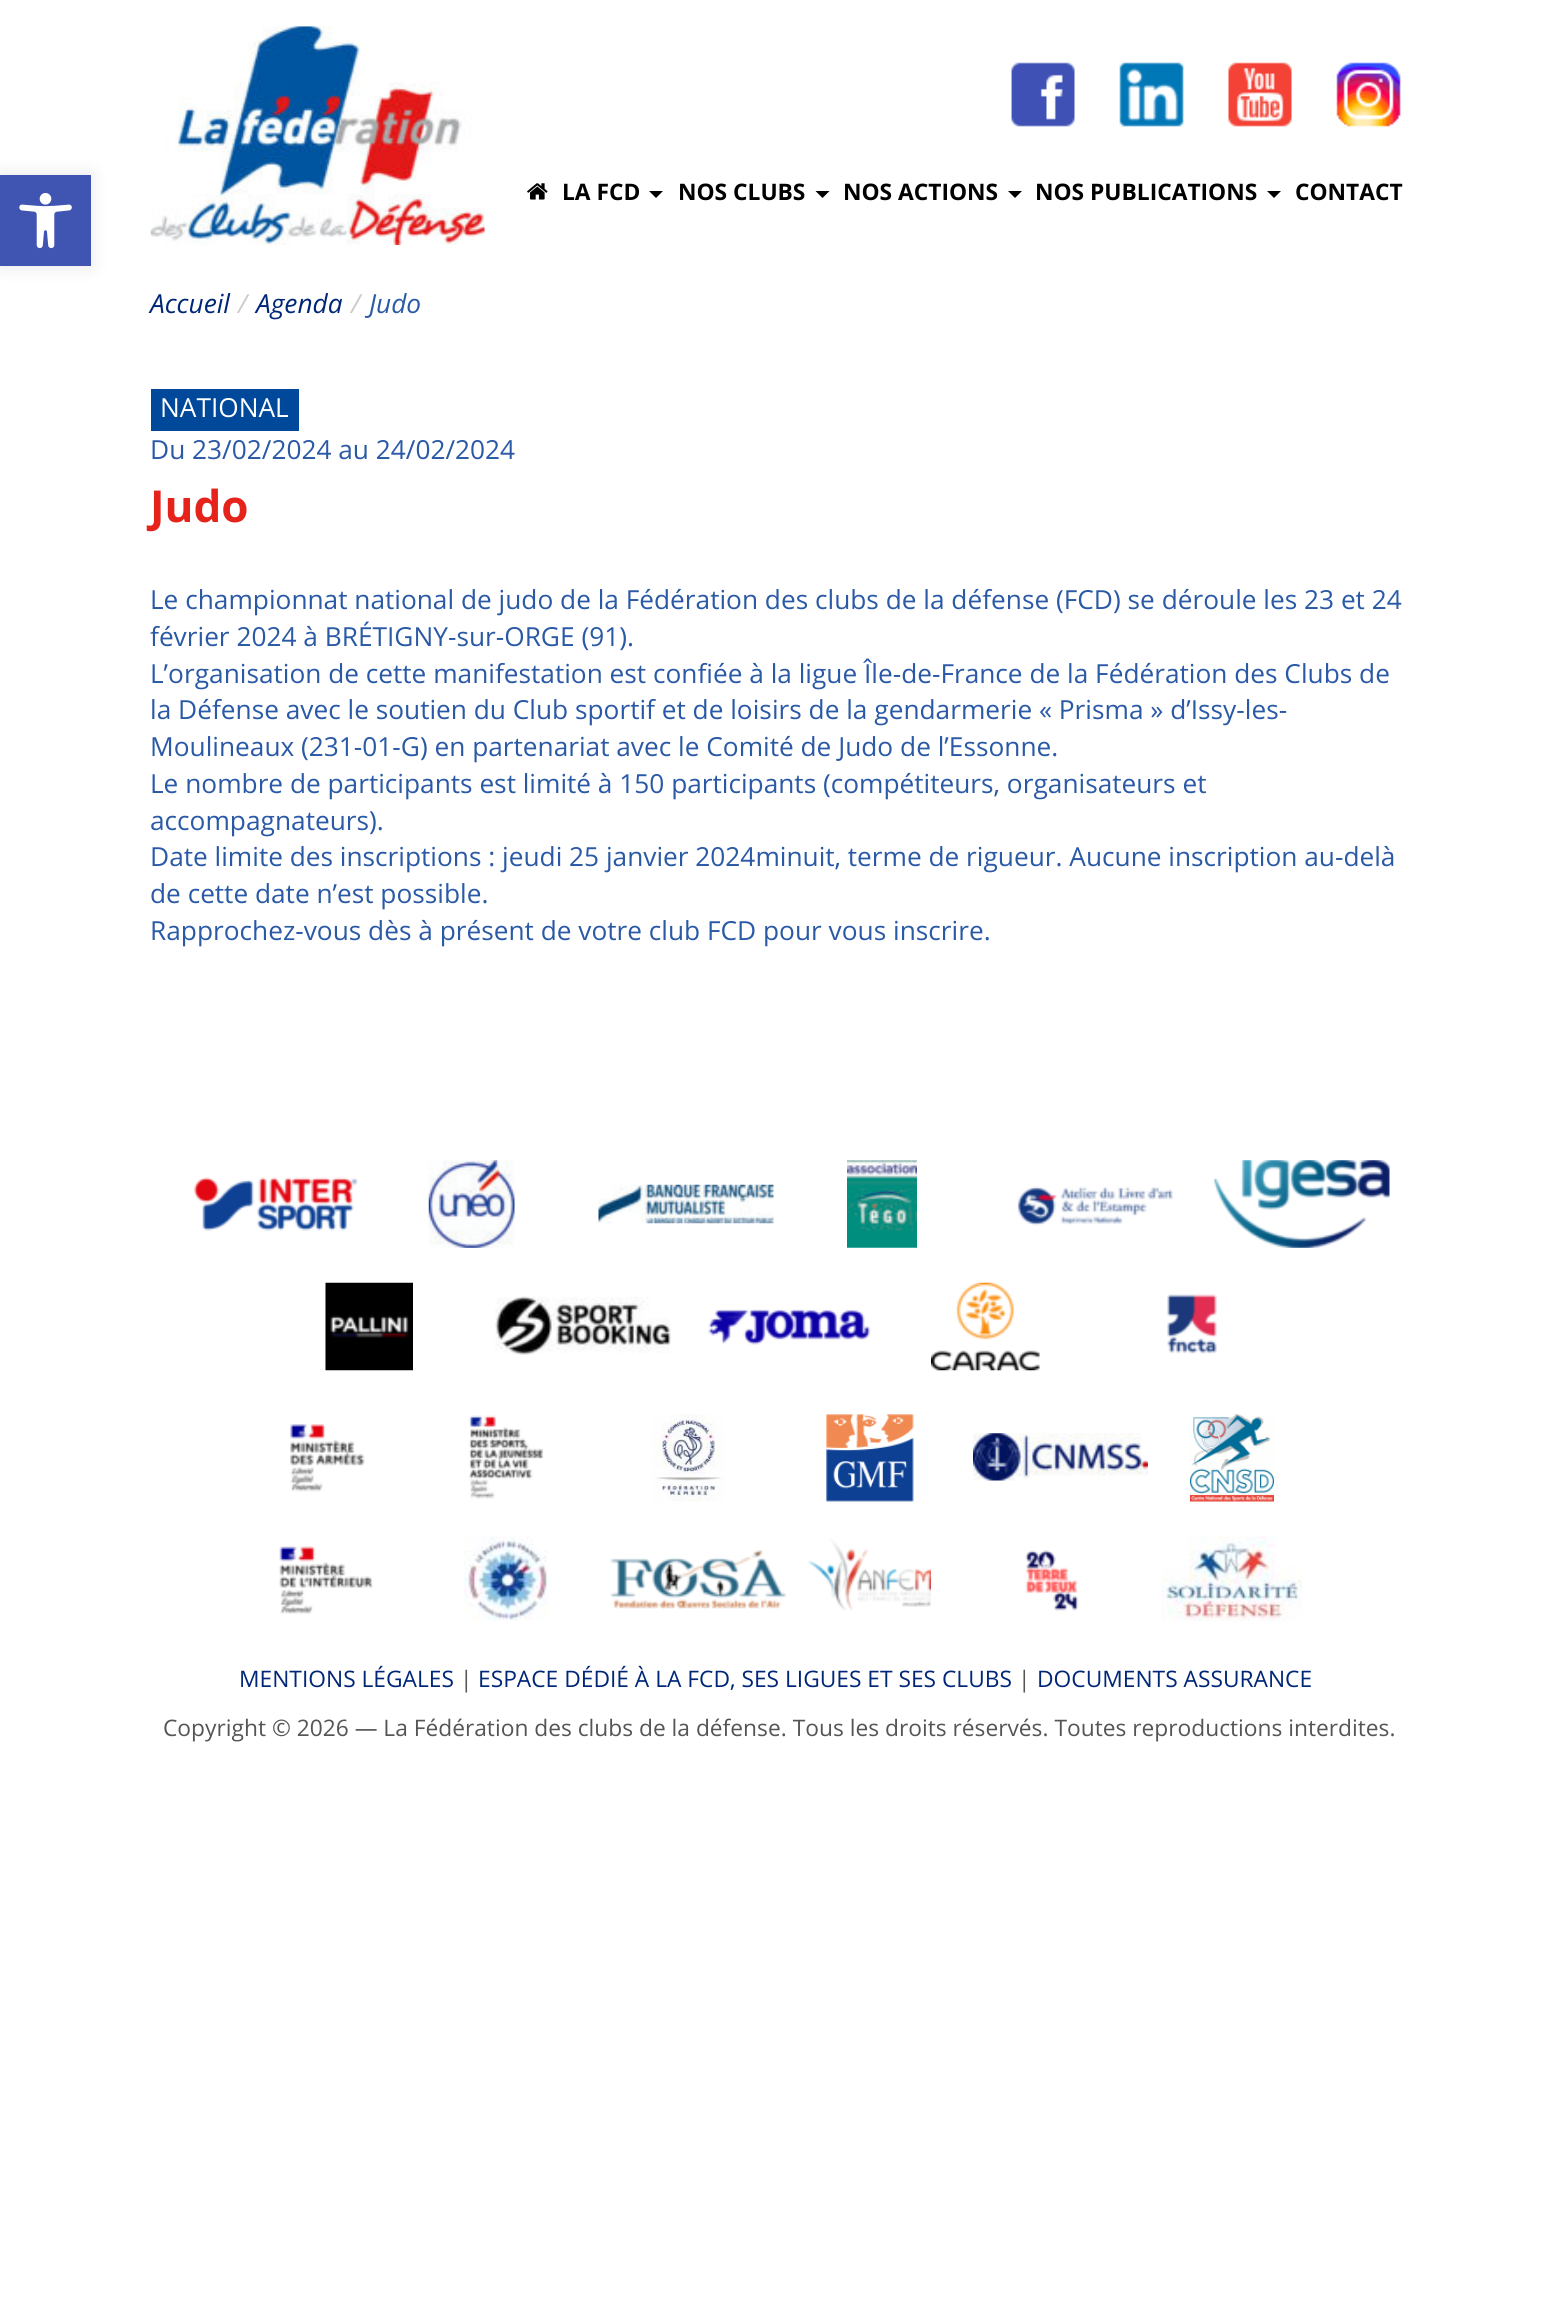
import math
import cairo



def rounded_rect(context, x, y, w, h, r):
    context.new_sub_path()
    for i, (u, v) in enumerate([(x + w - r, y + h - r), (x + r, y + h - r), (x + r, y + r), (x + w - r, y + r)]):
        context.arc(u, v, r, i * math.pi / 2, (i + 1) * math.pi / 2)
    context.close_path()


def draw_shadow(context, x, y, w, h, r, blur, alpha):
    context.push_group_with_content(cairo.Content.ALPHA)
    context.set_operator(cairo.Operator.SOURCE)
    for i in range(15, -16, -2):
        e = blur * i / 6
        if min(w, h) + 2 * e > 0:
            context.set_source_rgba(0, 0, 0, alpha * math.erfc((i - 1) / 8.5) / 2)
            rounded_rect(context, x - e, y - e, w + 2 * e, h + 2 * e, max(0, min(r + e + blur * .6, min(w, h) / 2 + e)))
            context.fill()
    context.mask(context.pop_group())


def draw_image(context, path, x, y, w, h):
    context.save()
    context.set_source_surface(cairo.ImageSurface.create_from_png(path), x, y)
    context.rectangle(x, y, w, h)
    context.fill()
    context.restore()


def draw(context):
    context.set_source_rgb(1, 1, 1)
    context.paint()
    context.set_source_rgb(0, 0, 0)
    draw_shadow(context, 0, 175, 91, 91, 0, 9, 0.1)
    context.set_source_rgb(64 / 255, 84 / 255, 178 / 255)
    context.rectangle(0, 175, 91, 91)
    context.fill()
    draw_image(context, "images/1.png", 19, 193, 53, 56)
    draw_image(context, "images/2.png", 150, 26, 335, 219)
    draw_image(context, "images/3.png", 1011, 62, 64, 65)
    draw_image(context, "images/4.png", 1119, 62, 65, 65)
    draw_image(context, "images/5.png", 1228, 62, 64, 65)
    draw_image(context, "images/6.png", 1336, 62, 65, 65)
    draw_image(context, "images/7.png", 527, 183, 21, 17)
    context.set_source_rgb(0, 0, 0)
    context.new_path()
    context.move_to(649, 191)
    context.line_to(663, 191)
    context.line_to(656, 198)
    context.close_path()
    context.fill()
    context.new_path()
    context.move_to(815.5, 191)
    context.line_to(829.5, 191)
    context.line_to(822.5, 198)
    context.close_path()
    context.fill()
    context.new_path()
    context.move_to(1008, 191)
    context.line_to(1022, 191)
    context.line_to(1015, 198)
    context.close_path()
    context.fill()
    context.new_path()
    context.move_to(1267, 191)
    context.line_to(1281, 191)
    context.line_to(1274, 198)
    context.close_path()
    context.fill()
    context.set_source_rgb(0, 72 / 255, 153 / 255)
    context.rectangle(151, 389, 148, 42)
    context.fill()
    draw_image(context, "images/8.png", 193, 1177, 165, 54)
    draw_image(context, "images/9.png", 428, 1160, 87, 88)
    draw_image(context, "images/10.png", 598, 1184, 176, 40)
    draw_image(context, "images/11.png", 847, 1160, 70, 88)
    draw_image(context, "images/12.png", 1017, 1186, 156, 40)
    draw_image(context, "images/13.png", 1214, 1160, 176, 88)
    draw_image(context, "images/14.png", 325, 1282, 88, 89)
    draw_image(context, "images/15.png", 495, 1296, 176, 59)
    draw_image(context, "images/16.png", 708, 1309, 163, 36)
    draw_image(context, "images/17.png", 931, 1282, 109, 89)
    draw_image(context, "images/18.png", 1167, 1294, 50, 60)
    draw_image(context, "images/19.png", 290, 1424, 75, 68)
    draw_image(context, "images/20.png", 468, 1415, 76, 84)
    draw_image(context, "images/21.png", 653, 1414, 71, 88)
    draw_image(context, "images/22.png", 826, 1414, 88, 88)
    draw_image(context, "images/23.png", 973, 1433, 175, 48)
    draw_image(context, "images/24.png", 1190, 1414, 84, 88)
    draw_image(context, "images/25.png", 279, 1546, 94, 68)
    draw_image(context, "images/26.png", 464, 1536, 85, 85)
    draw_image(context, "images/27.png", 610, 1550, 176, 59)
    draw_image(context, "images/28.png", 808, 1539, 123, 72)
    draw_image(context, "images/29.png", 1025, 1550, 54, 61)
    draw_image(context, "images/30.png", 1162, 1536, 140, 86)
    context.select_font_face("Open Sans", cairo.FontSlant.NORMAL, cairo.FontWeight.BOLD)
    context.set_font_size(22.75)
    context.set_source_rgb(0, 0, 0)
    context.move_to(562, 200)
    context.show_text("LA FCD")
    context.move_to(678, 200)
    context.show_text("NOS CLUBS")
    context.move_to(843, 200)
    context.show_text("NOS ACTIONS")
    context.move_to(1035, 200)
    context.show_text("NOS PUBLICATIONS")
    context.move_to(1295, 200)
    context.show_text("CONTACT")
    context.select_font_face("Open Sans", cairo.FontSlant.ITALIC)
    context.set_font_size(26.25)
    context.set_source_rgb(0, 38 / 255, 119 / 255)
    context.move_to(150, 313)
    context.show_text("Accueil")
    context.set_source_rgb(204 / 255, 204 / 255, 204 / 255)
    context.move_to(238, 313)
    context.show_text("/")
    context.set_source_rgb(0, 38 / 255, 119 / 255)
    context.move_to(256, 313)
    context.show_text("Agenda")
    context.set_source_rgb(204 / 255, 204 / 255, 204 / 255)
    context.move_to(351, 313)
    context.show_text("/")
    context.set_source_rgb(42 / 255, 89 / 255, 165 / 255)
    context.move_to(369, 313)
    context.show_text("Judo")
    context.select_font_face("Open Sans")
    context.set_source_rgb(1, 1, 1)
    context.move_to(160, 417)
    context.show_text("NATIONAL")
    context.set_source_rgb(42 / 255, 89 / 255, 165 / 255)
    context.move_to(150, 459)
    context.show_text("Du 23/02/2024 au 24/02/2024")
    context.select_font_face("Open Sans", cairo.FontSlant.NORMAL, cairo.FontWeight.BOLD)
    context.set_font_size(44)
    context.set_source_rgb(229 / 255, 35 / 255, 27 / 255)
    context.move_to(150, 522)
    context.show_text("Judo")
    context.select_font_face("Open Sans")
    context.set_font_size(26.25)
    context.set_source_rgb(42 / 255, 89 / 255, 165 / 255)
    context.move_to(150, 609)
    context.show_text("Le championnat national de judo de la Fédération des clubs de la défense (FCD) se déroule les 23 et 24")
    context.move_to(150, 646)
    context.show_text("février 2024 à BRÉTIGNY-sur-ORGE (91).")
    context.move_to(150, 683)
    context.show_text("L’organisation de cette manifestation est confiée à la ligue Île-de-France de la Fédération des Clubs de")
    context.move_to(150, 719)
    context.show_text("la Défense avec le soutien du Club sportif et de loisirs de la gendarmerie « Prisma » d’Issy-les-")
    context.move_to(150, 756)
    context.show_text("Moulineaux (231-01-G) en partenariat avec le Comité de Judo de l’Essonne.")
    context.move_to(150, 793)
    context.show_text("Le nombre de participants est limité à 150 participants (compétiteurs, organisateurs et")
    context.move_to(150, 830)
    context.show_text("accompagnateurs).")
    context.move_to(150, 866)
    context.show_text("Date limite des inscriptions : jeudi 25 janvier 2024minuit, terme de rigueur. Aucune inscription au-delà")
    context.move_to(150, 903)
    context.show_text("de cette date n’est possible.")
    context.move_to(150, 940)
    context.show_text("Rapprochez-vous dès à présent de votre club FCD pour vous inscrire.")
    context.set_font_size(22.75)
    context.set_source_rgb(0, 38 / 255, 119 / 255)
    context.move_to(239, 1687)
    context.show_text("MENTIONS LÉGALES")
    context.set_source_rgb(85 / 255, 85 / 255, 85 / 255)
    context.move_to(460, 1687)
    context.show_text("|")
    context.set_source_rgb(0, 38 / 255, 119 / 255)
    context.move_to(478, 1687)
    context.show_text("ESPACE DÉDIÉ À LA FCD, SES LIGUES ET SES CLUBS")
    context.set_source_rgb(85 / 255, 85 / 255, 85 / 255)
    context.move_to(1018, 1687)
    context.show_text("|")
    context.set_source_rgb(0, 38 / 255, 119 / 255)
    context.move_to(1037, 1687)
    context.show_text("DOCUMENTS ASSURANCE")
    context.set_source_rgb(85 / 255, 85 / 255, 85 / 255)
    context.move_to(163, 1736)
    context.show_text("Copyright © 2026 — La Fédération des clubs de la défense. Tous les droits réservés. Toutes reproductions interdites.")


surface = cairo.ImageSurface(cairo.Format.RGB24, 1558, 2316)
context = cairo.Context(surface)
options = cairo.FontOptions()
options.set_hint_metrics(cairo.HintMetrics.OFF)
options.set_hint_style(cairo.HintStyle.NONE)
context.set_font_options(options)
context.set_miter_limit(4)
draw(context)
surface.write_to_png("out.png")
